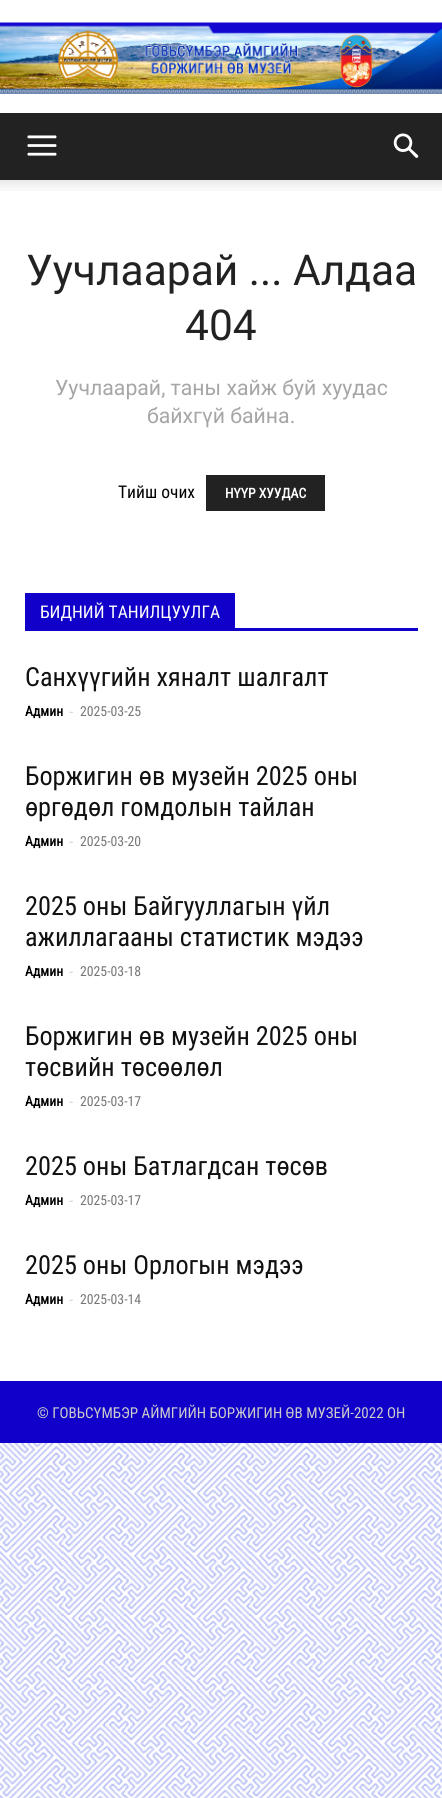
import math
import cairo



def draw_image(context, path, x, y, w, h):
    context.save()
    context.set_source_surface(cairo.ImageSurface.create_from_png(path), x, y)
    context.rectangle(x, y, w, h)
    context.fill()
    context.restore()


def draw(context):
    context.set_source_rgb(1, 1, 1)
    context.paint()
    draw_image(context, "images/1.png", 0, 1443, 442, 355)
    draw_image(context, "images/2.png", 0, 22, 442, 72)
    context.set_source_rgb(34 / 255, 34 / 255, 34 / 255)
    context.rectangle(0, 113, 442, 67)
    context.fill()
    draw_image(context, "images/3.png", 27, 135, 30, 21)
    draw_image(context, "images/4.png", 393, 133, 26, 25)
    draw_image(context, "images/5.png", 0, 180, 442, 11)
    context.rectangle(206, 475, 119, 36)
    context.fill()
    context.set_source_rgb(16 / 255, 0, 202 / 255)
    context.rectangle(25, 628, 393, 3)
    context.fill()
    context.rectangle(25, 593, 210, 35)
    context.fill()
    context.rectangle(0, 1381, 442, 62)
    context.fill()
    context.select_font_face("Roboto")
    context.set_font_size(42.5)
    context.set_source_rgb(34 / 255, 34 / 255, 34 / 255)
    context.move_to(26, 285)
    context.show_text("Уучлаарай ... Алдаа")
    context.move_to(185, 340)
    context.show_text("404")
    context.set_font_size(21.25)
    context.set_source_rgb(166 / 255, 166 / 255, 166 / 255)
    context.move_to(55, 395)
    context.show_text("Уучлаарай, таны хайж буй хуудас")
    context.move_to(147, 423)
    context.show_text("байхгүй байна.")
    context.select_font_face("Roboto Condensed")
    context.set_font_size(17.5)
    context.set_source_rgb(0, 0, 0)
    context.move_to(118, 498)
    context.show_text("Тийш очих")
    context.select_font_face("Roboto Condensed", cairo.FontSlant.NORMAL, cairo.FontWeight.BOLD)
    context.set_font_size(13.75)
    context.set_source_rgb(1, 1, 1)
    context.move_to(225, 498)
    context.show_text("НҮҮР ХУУДАС")
    context.select_font_face("Roboto Condensed")
    context.set_font_size(17.5)
    context.move_to(40, 618)
    context.show_text("БИДНИЙ ТАНИЛЦУУЛГА")
    context.set_font_size(26.25)
    context.set_source_rgb(17 / 255, 17 / 255, 17 / 255)
    context.move_to(25, 686)
    context.show_text("Санхүүгийн хяналт шалгалт")
    context.select_font_face("Roboto Condensed", cairo.FontSlant.NORMAL, cairo.FontWeight.BOLD)
    context.set_font_size(13.75)
    context.set_source_rgb(0, 0, 0)
    context.move_to(25, 716)
    context.show_text("Админ")
    context.select_font_face("Open Sans")
    context.set_source_rgb(204 / 255, 204 / 255, 204 / 255)
    context.move_to(69, 716)
    context.show_text("-")
    context.select_font_face("Roboto Condensed")
    context.set_source_rgb(118 / 255, 118 / 255, 118 / 255)
    context.move_to(80, 716)
    context.show_text("2025-03-25")
    context.set_font_size(26.25)
    context.set_source_rgb(17 / 255, 17 / 255, 17 / 255)
    context.move_to(25, 785)
    context.show_text("Боржигин өв музейн 2025 оны")
    context.move_to(25, 816)
    context.show_text("өргөдөл гомдолын тайлан")
    context.select_font_face("Roboto Condensed", cairo.FontSlant.NORMAL, cairo.FontWeight.BOLD)
    context.set_font_size(13.75)
    context.set_source_rgb(0, 0, 0)
    context.move_to(25, 846)
    context.show_text("Админ")
    context.select_font_face("Open Sans")
    context.set_source_rgb(204 / 255, 204 / 255, 204 / 255)
    context.move_to(69, 846)
    context.show_text("-")
    context.select_font_face("Roboto Condensed")
    context.set_source_rgb(118 / 255, 118 / 255, 118 / 255)
    context.move_to(80, 846)
    context.show_text("2025-03-20")
    context.set_font_size(26.25)
    context.set_source_rgb(17 / 255, 17 / 255, 17 / 255)
    context.move_to(25, 915)
    context.show_text("2025 оны Байгууллагын үйл")
    context.move_to(25, 946)
    context.show_text("ажиллагааны статистик мэдээ")
    context.select_font_face("Roboto Condensed", cairo.FontSlant.NORMAL, cairo.FontWeight.BOLD)
    context.set_font_size(13.75)
    context.set_source_rgb(0, 0, 0)
    context.move_to(25, 976)
    context.show_text("Админ")
    context.select_font_face("Open Sans")
    context.set_source_rgb(204 / 255, 204 / 255, 204 / 255)
    context.move_to(69, 976)
    context.show_text("-")
    context.select_font_face("Roboto Condensed")
    context.set_source_rgb(118 / 255, 118 / 255, 118 / 255)
    context.move_to(80, 976)
    context.show_text("2025-03-18")
    context.set_font_size(26.25)
    context.set_source_rgb(17 / 255, 17 / 255, 17 / 255)
    context.move_to(25, 1045)
    context.show_text("Боржигин өв музейн 2025 оны")
    context.move_to(25, 1076)
    context.show_text("төсвийн төсөөлөл")
    context.select_font_face("Roboto Condensed", cairo.FontSlant.NORMAL, cairo.FontWeight.BOLD)
    context.set_font_size(13.75)
    context.set_source_rgb(0, 0, 0)
    context.move_to(25, 1106)
    context.show_text("Админ")
    context.select_font_face("Open Sans")
    context.set_source_rgb(204 / 255, 204 / 255, 204 / 255)
    context.move_to(69, 1106)
    context.show_text("-")
    context.select_font_face("Roboto Condensed")
    context.set_source_rgb(118 / 255, 118 / 255, 118 / 255)
    context.move_to(80, 1106)
    context.show_text("2025-03-17")
    context.set_font_size(26.25)
    context.set_source_rgb(17 / 255, 17 / 255, 17 / 255)
    context.move_to(25, 1175)
    context.show_text("2025 оны Батлагдсан төсөв")
    context.select_font_face("Roboto Condensed", cairo.FontSlant.NORMAL, cairo.FontWeight.BOLD)
    context.set_font_size(13.75)
    context.set_source_rgb(0, 0, 0)
    context.move_to(25, 1205)
    context.show_text("Админ")
    context.select_font_face("Open Sans")
    context.set_source_rgb(204 / 255, 204 / 255, 204 / 255)
    context.move_to(69, 1205)
    context.show_text("-")
    context.select_font_face("Roboto Condensed")
    context.set_source_rgb(118 / 255, 118 / 255, 118 / 255)
    context.move_to(80, 1205)
    context.show_text("2025-03-17")
    context.set_font_size(26.25)
    context.set_source_rgb(17 / 255, 17 / 255, 17 / 255)
    context.move_to(25, 1274)
    context.show_text("2025 оны Орлогын мэдээ")
    context.select_font_face("Roboto Condensed", cairo.FontSlant.NORMAL, cairo.FontWeight.BOLD)
    context.set_font_size(13.75)
    context.set_source_rgb(0, 0, 0)
    context.move_to(25, 1304)
    context.show_text("Админ")
    context.select_font_face("Open Sans")
    context.set_source_rgb(204 / 255, 204 / 255, 204 / 255)
    context.move_to(69, 1304)
    context.show_text("-")
    context.select_font_face("Roboto Condensed")
    context.set_source_rgb(118 / 255, 118 / 255, 118 / 255)
    context.move_to(80, 1304)
    context.show_text("2025-03-14")
    context.set_font_size(15)
    context.set_source_rgb(204 / 255, 204 / 255, 204 / 255)
    context.move_to(37, 1418)
    context.show_text("© ГОВЬСҮМБЭР АЙМГИЙН БОРЖИГИН ӨВ МУЗЕЙ-2022 ОН")


surface = cairo.ImageSurface(cairo.Format.RGB24, 442, 1798)
context = cairo.Context(surface)
options = cairo.FontOptions()
options.set_hint_metrics(cairo.HintMetrics.OFF)
options.set_hint_style(cairo.HintStyle.NONE)
context.set_font_options(options)
context.set_miter_limit(4)
draw(context)
surface.write_to_png("out.png")
